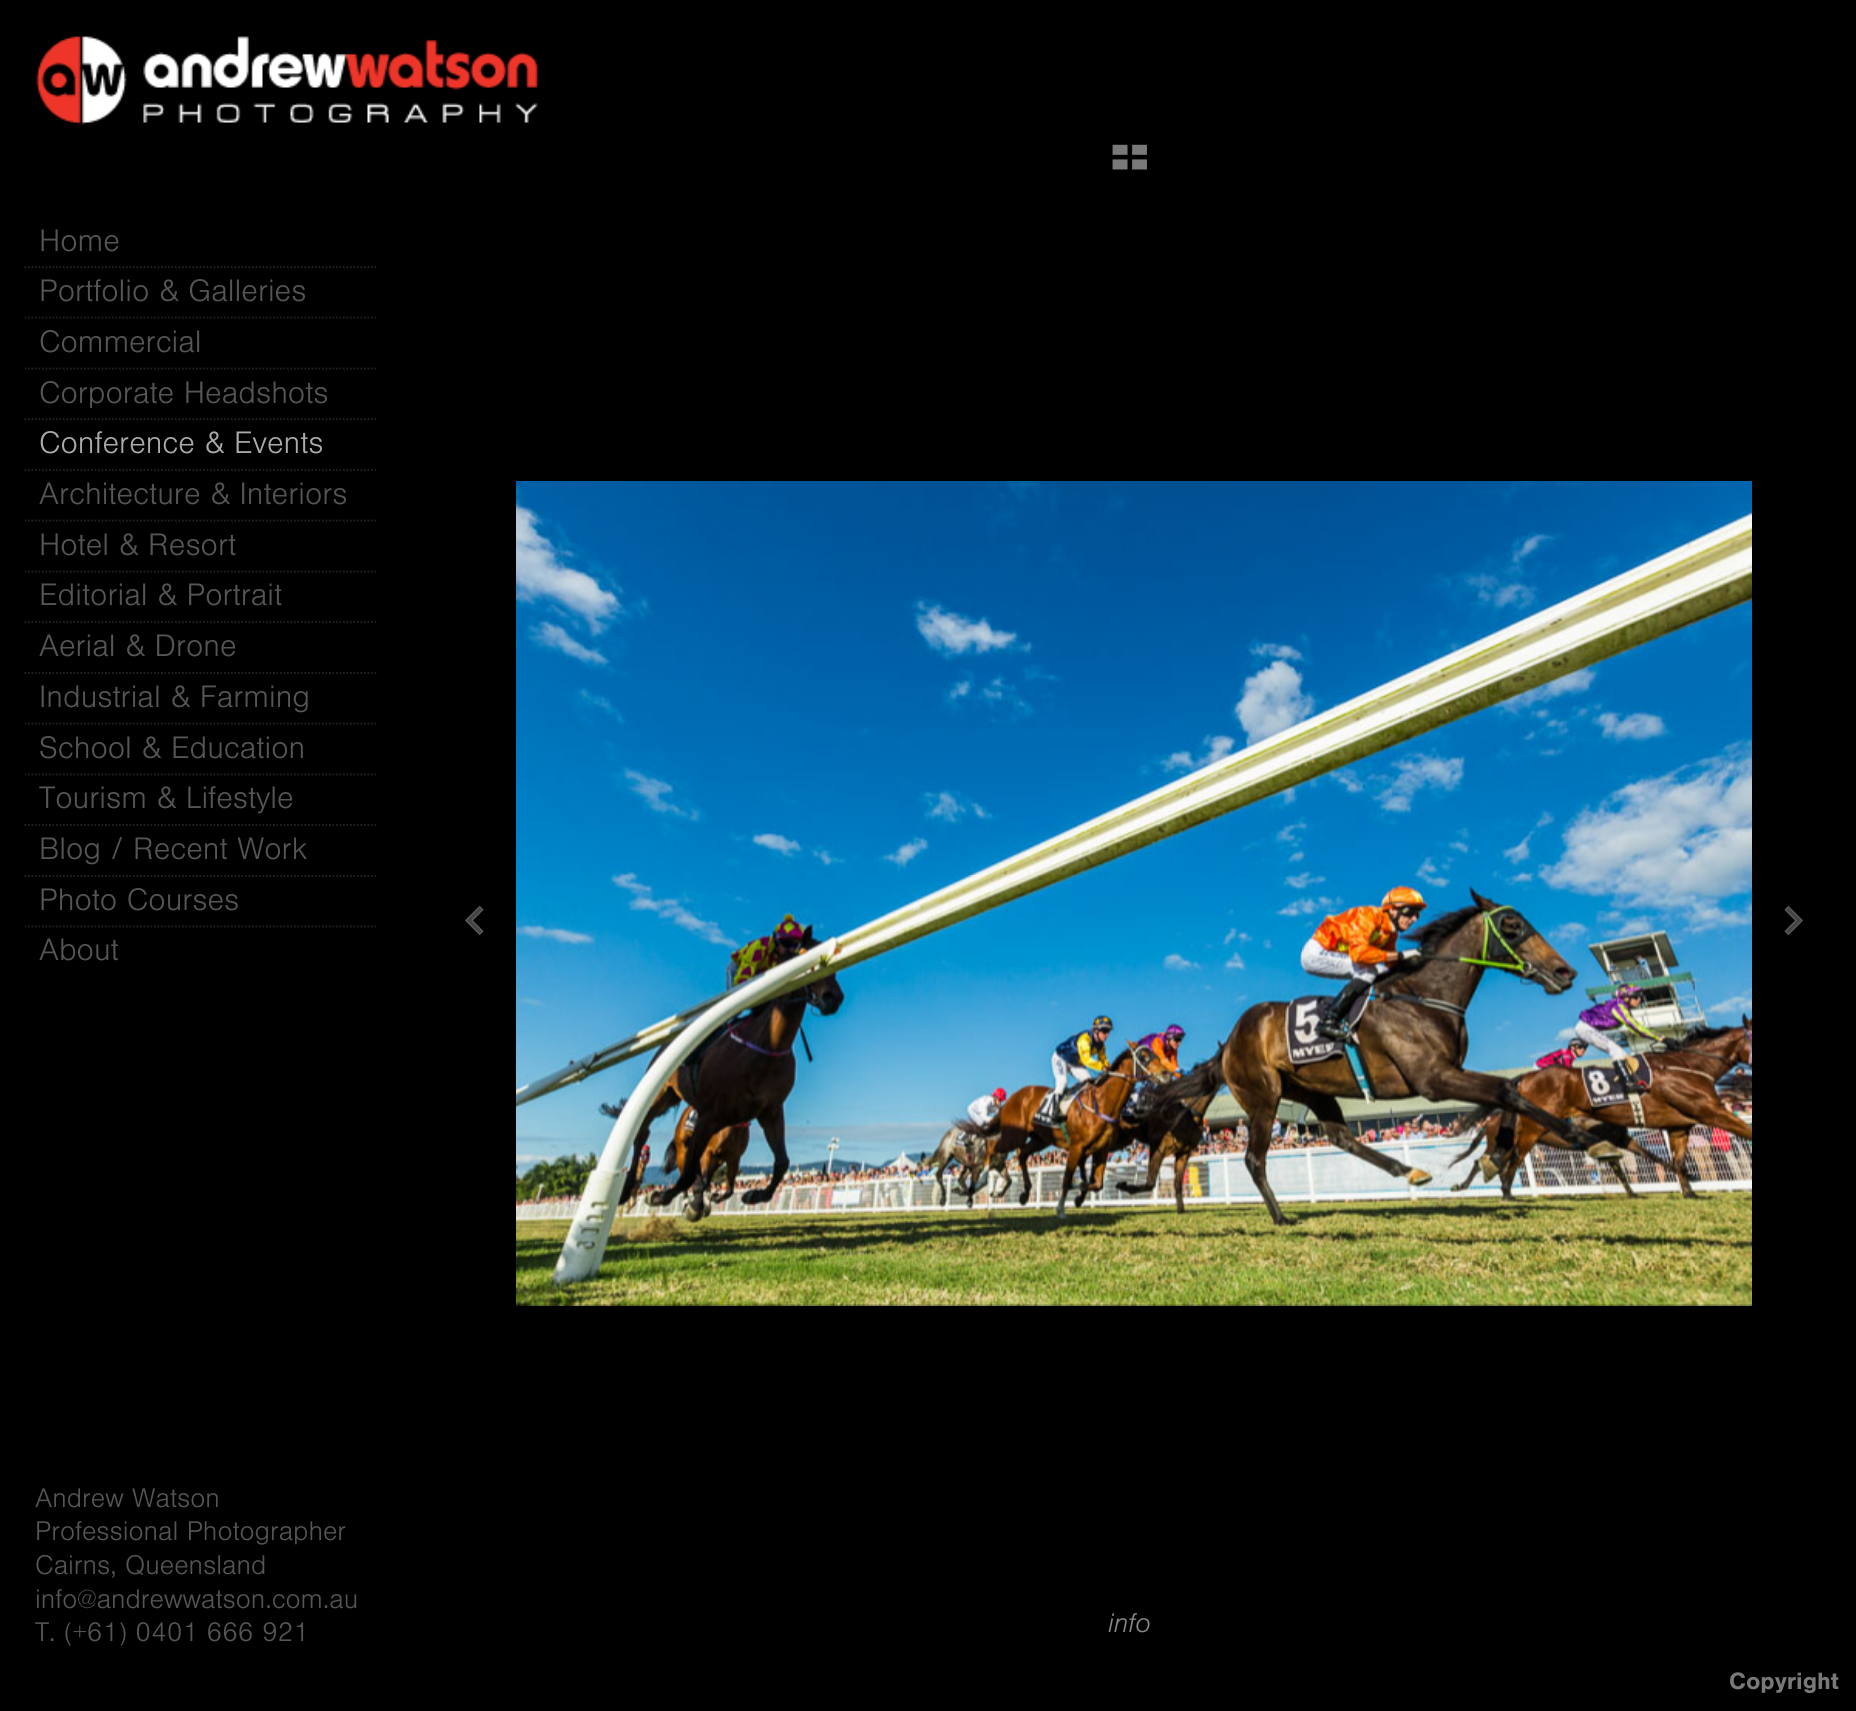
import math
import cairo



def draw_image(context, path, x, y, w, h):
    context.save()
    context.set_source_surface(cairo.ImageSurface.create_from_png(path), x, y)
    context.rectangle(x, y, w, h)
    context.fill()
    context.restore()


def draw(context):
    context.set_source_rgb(0, 0, 0)
    context.paint()
    draw_image(context, "images/1.png", 36, 36, 502, 89)
    draw_image(context, "images/2.png", 1112, 144, 35, 26)
    context.new_path()
    context.move_to(24.5, 267)
    context.line_to(378, 267)
    context.set_source_rgb(34 / 255, 34 / 255, 34 / 255)
    context.set_line_width(1.8)
    context.set_dash([1.75, 1.75])
    context.stroke()
    context.save()
    context.rectangle(25, 214, 353, 1162)
    context.clip()
    context.new_path()
    context.move_to(24.5, 317.5)
    context.line_to(378, 317.5)
    context.stroke()
    context.new_path()
    context.move_to(24.5, 368.5)
    context.line_to(378, 368.5)
    context.stroke()
    context.restore()
    context.new_path()
    context.move_to(24.5, 419)
    context.line_to(378, 419)
    context.stroke()
    context.new_path()
    context.move_to(24.5, 470)
    context.line_to(378, 470)
    context.stroke()
    context.save()
    context.rectangle(25, 214, 353, 1162)
    context.clip()
    context.new_path()
    context.move_to(24.5, 520.5)
    context.line_to(378, 520.5)
    context.stroke()
    context.new_path()
    context.move_to(24.5, 571.5)
    context.line_to(378, 571.5)
    context.stroke()
    context.restore()
    context.new_path()
    context.move_to(24.5, 622)
    context.line_to(378, 622)
    context.stroke()
    context.new_path()
    context.move_to(24.5, 673)
    context.line_to(378, 673)
    context.stroke()
    context.save()
    context.rectangle(25, 214, 353, 1162)
    context.clip()
    context.new_path()
    context.move_to(24.5, 723.5)
    context.line_to(378, 723.5)
    context.stroke()
    context.new_path()
    context.move_to(24.5, 774.5)
    context.line_to(378, 774.5)
    context.stroke()
    context.restore()
    context.new_path()
    context.move_to(24.5, 825)
    context.line_to(378, 825)
    context.stroke()
    context.new_path()
    context.move_to(24.5, 876)
    context.line_to(378, 876)
    context.stroke()
    context.save()
    context.rectangle(25, 214, 353, 1162)
    context.clip()
    context.new_path()
    context.move_to(24.5, 926.5)
    context.line_to(378, 926.5)
    context.stroke()
    context.restore()
    draw_image(context, "images/3.png", 465, 905, 19, 31)
    draw_image(context, "images/4.png", 516, 481, 1236, 825)
    draw_image(context, "images/5.png", 1784, 905, 19, 31)
    context.select_font_face("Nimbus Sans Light")
    context.set_font_size(32.25)
    context.set_source_rgb(85 / 255, 85 / 255, 85 / 255)
    context.move_to(39, 251)
    context.show_text("Home")
    context.move_to(39, 301)
    context.show_text("Portfolio & Galleries")
    context.move_to(39, 352)
    context.show_text("Commercial")
    context.move_to(39, 403)
    context.show_text("Corporate Headshots")
    context.set_source_rgb(170 / 255, 170 / 255, 170 / 255)
    context.move_to(39, 453)
    context.show_text("Conference & Events")
    context.set_source_rgb(85 / 255, 85 / 255, 85 / 255)
    context.move_to(39, 504)
    context.show_text("Architecture & Interiors")
    context.move_to(39, 555)
    context.show_text("Hotel & Resort")
    context.move_to(39, 605)
    context.show_text("Editorial & Portrait")
    context.move_to(39, 656)
    context.show_text("Aerial & Drone")
    context.move_to(39, 707)
    context.show_text("Industrial & Farming")
    context.move_to(39, 758)
    context.show_text("School & Education")
    context.move_to(39, 808)
    context.show_text("Tourism & Lifestyle")
    context.move_to(39, 859)
    context.show_text("Blog / Recent Work")
    context.move_to(39, 910)
    context.show_text("Photo Courses")
    context.move_to(39, 960)
    context.show_text("About")
    context.set_font_size(28)
    context.move_to(35, 1507)
    context.show_text("Andrew Watson")
    context.move_to(35, 1540)
    context.show_text("Professional Photographer")
    context.move_to(35, 1574)
    context.show_text("Cairns, Queensland")
    context.move_to(35, 1608)
    context.show_text("info@andrewwatson.com.au")
    context.move_to(35, 1641)
    context.show_text("T. (+61) 0401 666 921")
    context.select_font_face("Nimbus Sans Light", cairo.FontSlant.ITALIC)
    context.set_source_rgb(136 / 255, 136 / 255, 136 / 255)
    context.move_to(1108, 1632)
    context.show_text("info")
    context.select_font_face("Nimbus Sans", cairo.FontSlant.NORMAL, cairo.FontWeight.BOLD)
    context.set_font_size(24.5)
    context.set_source_rgb(121 / 255, 121 / 255, 121 / 255)
    context.move_to(1729, 1689)
    context.show_text("Copyright")


surface = cairo.ImageSurface(cairo.Format.RGB24, 1856, 1711)
context = cairo.Context(surface)
options = cairo.FontOptions()
options.set_hint_metrics(cairo.HintMetrics.OFF)
options.set_hint_style(cairo.HintStyle.NONE)
context.set_font_options(options)
context.set_miter_limit(4)
draw(context)
surface.write_to_png("out.png")
